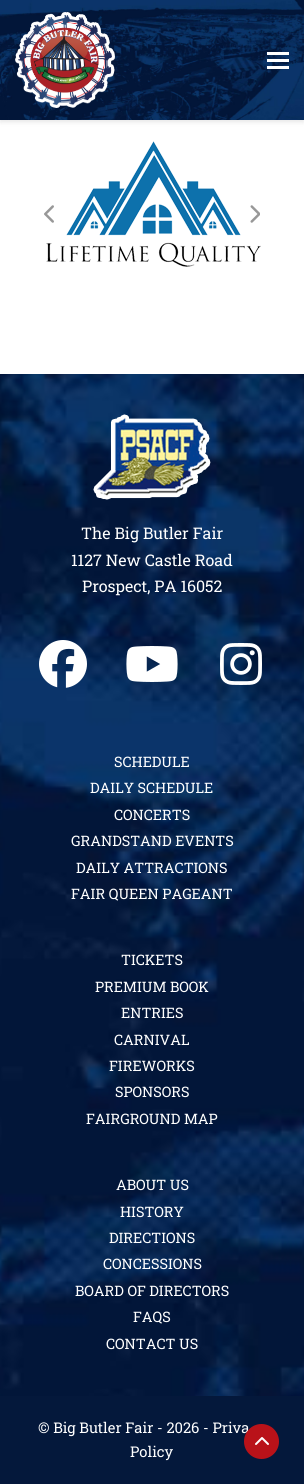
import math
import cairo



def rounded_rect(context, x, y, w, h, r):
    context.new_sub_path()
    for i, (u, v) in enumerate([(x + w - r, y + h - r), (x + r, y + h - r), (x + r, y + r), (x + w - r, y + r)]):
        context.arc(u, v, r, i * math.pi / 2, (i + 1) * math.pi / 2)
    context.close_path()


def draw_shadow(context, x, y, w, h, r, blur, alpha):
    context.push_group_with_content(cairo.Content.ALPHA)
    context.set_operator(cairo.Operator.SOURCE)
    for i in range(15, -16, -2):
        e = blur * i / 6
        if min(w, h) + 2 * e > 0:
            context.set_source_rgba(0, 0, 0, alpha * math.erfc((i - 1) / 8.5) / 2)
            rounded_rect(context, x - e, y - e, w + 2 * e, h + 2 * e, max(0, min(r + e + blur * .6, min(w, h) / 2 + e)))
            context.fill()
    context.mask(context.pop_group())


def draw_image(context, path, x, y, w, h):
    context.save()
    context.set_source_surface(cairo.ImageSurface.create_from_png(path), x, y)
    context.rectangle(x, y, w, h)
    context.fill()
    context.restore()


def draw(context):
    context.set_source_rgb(1, 1, 1)
    context.paint()
    context.set_source_rgb(0, 0, 0)
    draw_shadow(context, 0, 2, 304, 120, 0, 2.5, 0.1)
    draw_image(context, "images/1.png", 0, 0, 304, 120)
    draw_image(context, "images/2.png", 15, 12, 100, 96)
    context.set_source_rgb(1, 1, 1)
    context.rectangle(267, 59, 22, 3)
    context.fill()
    context.rectangle(267, 52, 22, 3)
    context.fill()
    context.rectangle(267, 66, 22, 3)
    context.fill()
    draw_image(context, "images/3.png", 46, 141, 215, 126)
    draw_image(context, "images/4.png", 44, 205, 10, 18)
    draw_image(context, "images/5.png", 250, 205, 10, 18)
    draw_image(context, "images/6.png", 0, 374, 304, 1022)
    draw_image(context, "images/7.png", 93, 414, 118, 86)
    draw_image(context, "images/8.png", 39, 640, 48, 48)
    draw_image(context, "images/9.png", 126, 646, 52, 36)
    draw_image(context, "images/10.png", 220, 643, 42, 42)
    context.set_source_rgb(4 / 255, 24 / 255, 59 / 255)
    context.rectangle(0, 1396, 304, 88)
    context.fill()
    context.select_font_face("Roboto Slab")
    context.set_font_size(16)
    context.set_source_rgb(1, 1, 1)
    context.move_to(81, 539)
    context.show_text("The Big Butler Fair")
    context.move_to(71, 566)
    context.show_text("1127 New Castle Road")
    context.move_to(82, 592)
    context.show_text("Prospect, PA 16052")
    context.set_font_size(14.4)
    context.move_to(114, 767)
    context.show_text("SCHEDULE")
    context.move_to(90, 793)
    context.show_text("DAILY SCHEDULE")
    context.move_to(114, 820)
    context.show_text("CONCERTS")
    context.move_to(71, 846)
    context.show_text("GRANDSTAND EVENTS")
    context.move_to(76, 873)
    context.show_text("DAILY ATTRACTIONS")
    context.move_to(71, 899)
    context.show_text("FAIR QUEEN PAGEANT")
    context.move_to(121, 965)
    context.show_text("TICKETS")
    context.move_to(95, 992)
    context.show_text("PREMIUM BOOK")
    context.move_to(121, 1018)
    context.show_text("ENTRIES")
    context.move_to(114, 1045)
    context.show_text("CARNIVAL")
    context.move_to(109, 1071)
    context.show_text("FIREWORKS")
    context.move_to(115, 1097)
    context.show_text("SPONSORS")
    context.move_to(86, 1124)
    context.show_text("FAIRGROUND MAP")
    context.move_to(116, 1190)
    context.show_text("ABOUT US")
    context.move_to(120, 1217)
    context.show_text("HISTORY")
    context.move_to(109, 1243)
    context.show_text("DIRECTIONS")
    context.move_to(103, 1269)
    context.show_text("CONCESSIONS")
    context.move_to(75, 1296)
    context.show_text("BOARD OF DIRECTORS")
    context.move_to(133, 1322)
    context.show_text("FAQS")
    context.move_to(106, 1349)
    context.show_text("CONTACT US")
    context.set_font_size(14.75)
    context.move_to(38, 1433)
    context.show_text("© Big Butler Fair - 2026 - Priva")
    context.move_to(130, 1457)
    context.show_text("Policy")
    context.set_source_rgb(185 / 255, 18 / 255, 25 / 255)
    context.new_path()
    context.arc(261.5, 1441.5, 17.5, 0, 2 * math.pi)
    context.fill()
    draw_image(context, "images/11.png", 255, 1437, 14, 8)


surface = cairo.ImageSurface(cairo.Format.RGB24, 304, 1484)
context = cairo.Context(surface)
options = cairo.FontOptions()
options.set_hint_metrics(cairo.HintMetrics.OFF)
options.set_hint_style(cairo.HintStyle.NONE)
context.set_font_options(options)
context.set_miter_limit(4)
draw(context)
surface.write_to_png("out.png")
